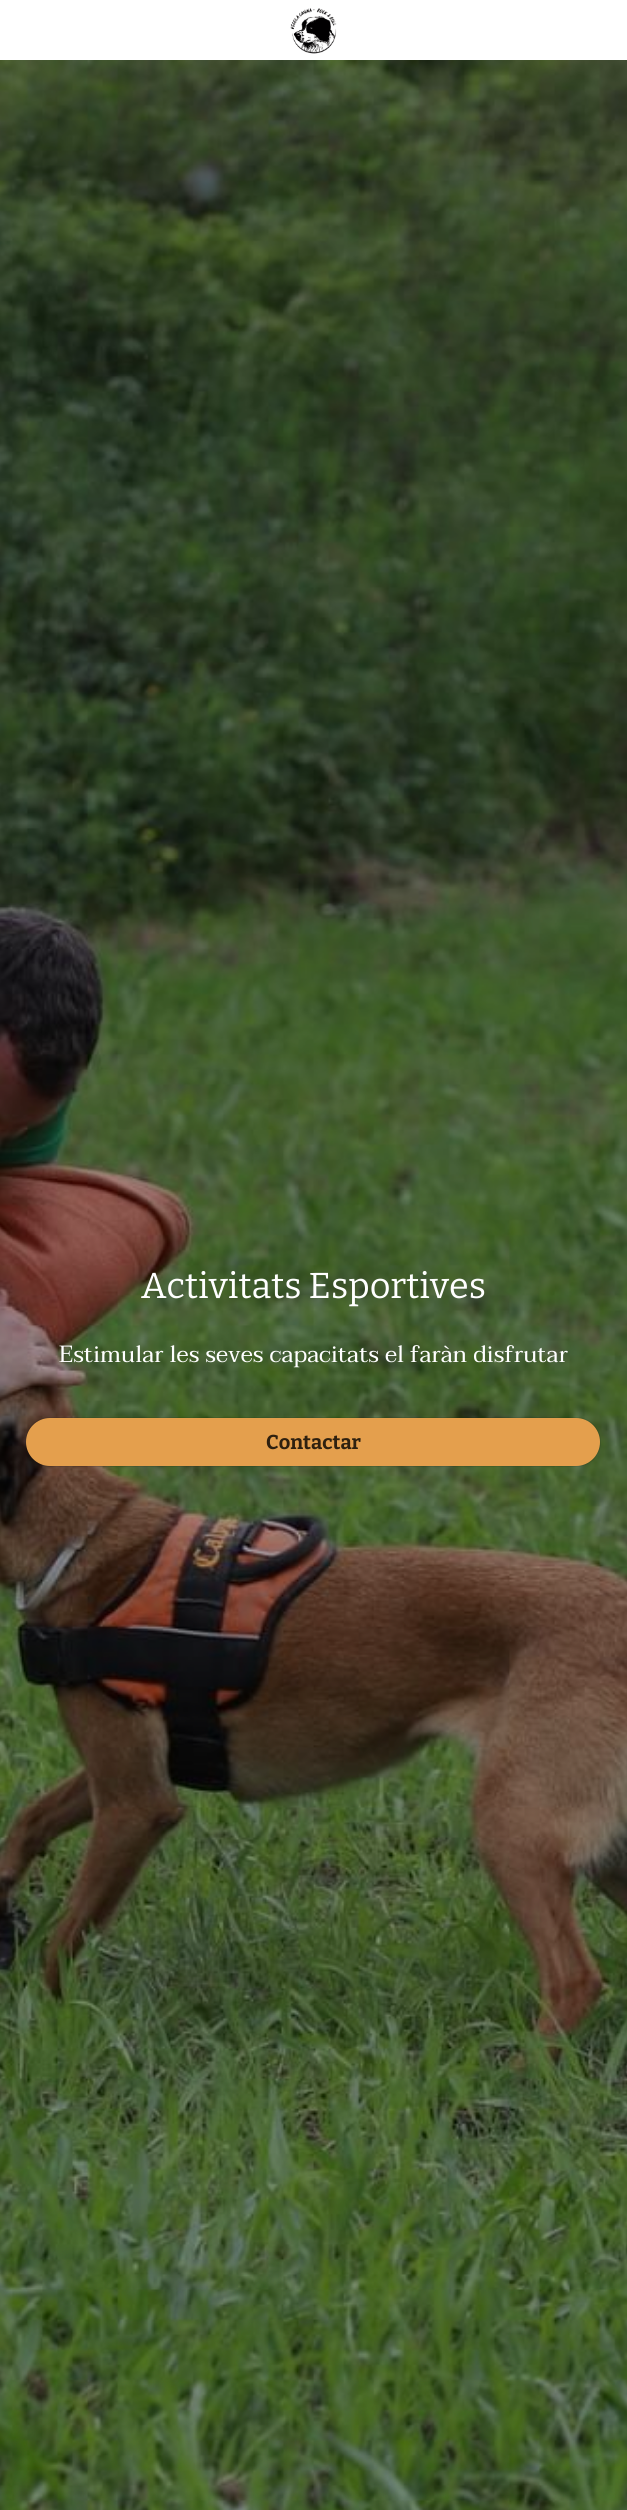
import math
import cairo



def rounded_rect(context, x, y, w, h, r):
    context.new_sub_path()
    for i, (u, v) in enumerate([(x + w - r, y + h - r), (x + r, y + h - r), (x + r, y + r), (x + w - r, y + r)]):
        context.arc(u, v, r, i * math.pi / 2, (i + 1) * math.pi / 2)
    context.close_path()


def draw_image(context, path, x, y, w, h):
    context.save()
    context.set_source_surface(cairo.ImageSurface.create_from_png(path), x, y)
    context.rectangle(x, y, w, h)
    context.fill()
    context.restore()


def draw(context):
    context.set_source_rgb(1, 1, 1)
    context.paint()
    draw_image(context, "images/1.png", 290, 8, 47, 46)
    draw_image(context, "images/2.png", 0, 60, 627, 2450)
    context.set_source_rgb(228 / 255, 159 / 255, 77 / 255)
    rounded_rect(context, 26, 1418, 574, 48, 24)
    context.fill()
    rounded_rect(context, 25.5, 1417.5, 575, 49, 24.5)
    context.set_source_rgba(0, 0, 0, 0.1)
    context.set_line_width(1)
    context.stroke()
    context.select_font_face("Bitter")
    context.set_font_size(36)
    context.set_source_rgb(1, 1, 1)
    context.move_to(141, 1298)
    context.show_text("Activitats Esportives")
    context.select_font_face("Taviraj")
    context.set_font_size(23.4)
    context.move_to(59, 1362)
    context.show_text("Estimular les seves capacitats el faràn disfrutar")
    context.select_font_face("Bitter", cairo.FontSlant.NORMAL, cairo.FontWeight.BOLD)
    context.set_font_size(20)
    context.set_source_rgb(46 / 255, 32 / 255, 15 / 255)
    context.move_to(266, 1449)
    context.show_text("Contactar")


surface = cairo.ImageSurface(cairo.Format.RGB24, 627, 2510)
context = cairo.Context(surface)
options = cairo.FontOptions()
options.set_hint_metrics(cairo.HintMetrics.OFF)
options.set_hint_style(cairo.HintStyle.NONE)
context.set_font_options(options)
context.set_miter_limit(4)
draw(context)
surface.write_to_png("out.png")
